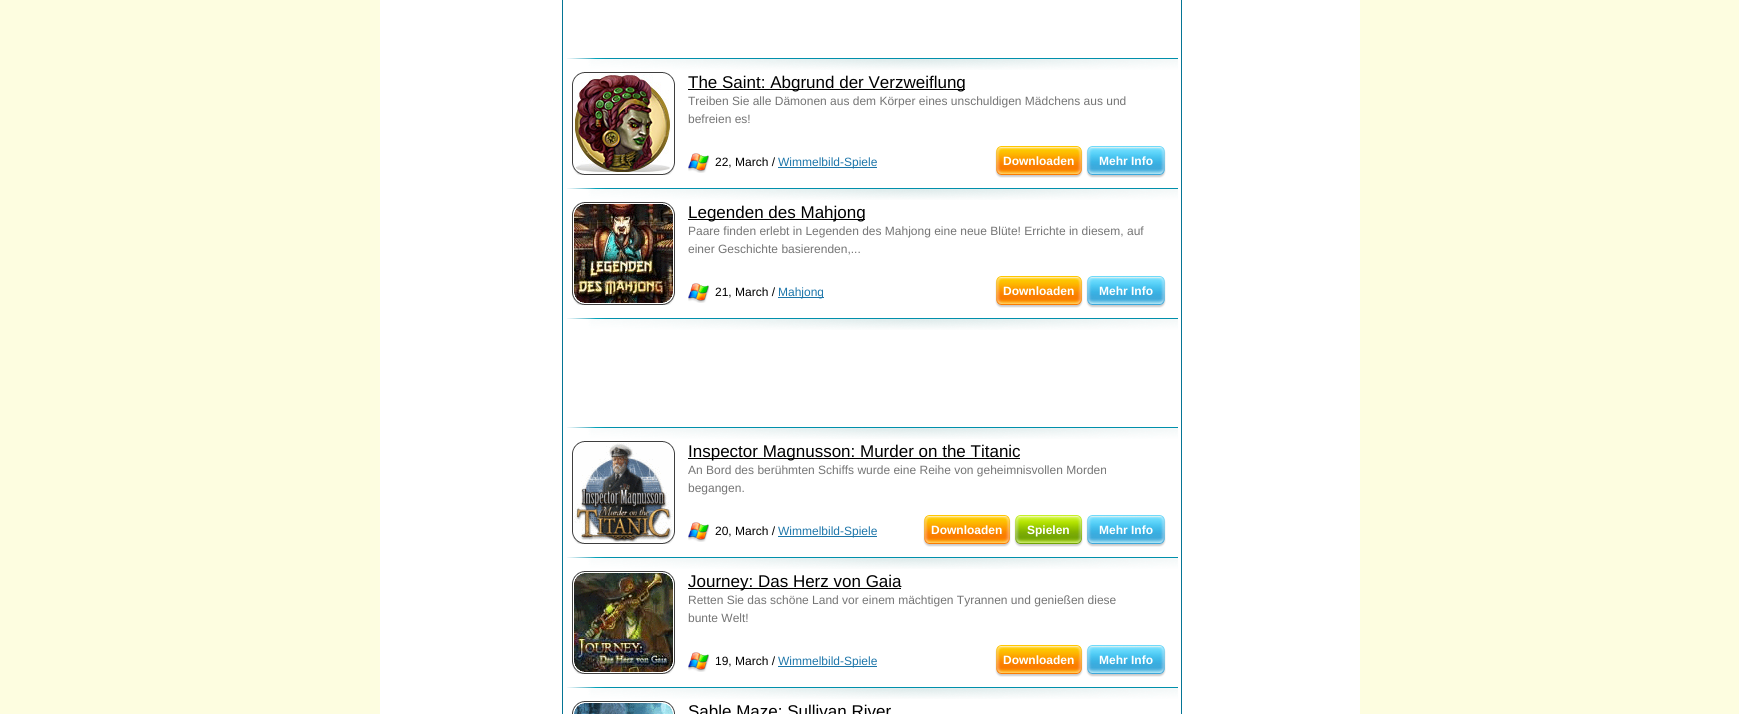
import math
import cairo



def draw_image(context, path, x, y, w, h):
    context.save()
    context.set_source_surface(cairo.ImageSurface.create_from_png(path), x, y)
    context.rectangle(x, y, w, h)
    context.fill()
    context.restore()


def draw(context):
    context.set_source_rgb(253 / 255, 253 / 255, 224 / 255)
    context.paint()
    context.set_source_rgb(1, 1, 1)
    context.rectangle(380, 0, 980, 714)
    context.fill()
    context.rectangle(562.5, -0.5, 619, 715)
    context.set_source_rgb(5 / 255, 117 / 255, 149 / 255)
    context.set_line_width(1)
    context.stroke()
    draw_image(context, "images/1.png", 567, 58, 611, 12)
    draw_image(context, "images/4.png", 574, 74, 97, 99)
    draw_image(context, "images/2.png", 572, 72, 12, 12)
    context.set_source_rgb(62 / 255, 62 / 255, 62 / 255)
    context.rectangle(584, 72, 79, 1)
    context.fill()
    draw_image(context, "images/3.png", 663, 72, 12, 12)
    context.set_source_rgb(0, 0, 0)
    context.rectangle(688, 89, 277, 1)
    context.fill()
    draw_image(context, "images/5.png", 688, 153, 21, 20)
    context.set_source_rgb(29 / 255, 118 / 255, 170 / 255)
    context.rectangle(778, 167, 99, 1)
    context.fill()
    draw_image(context, "images/6.png", 995, 146, 8, 32)
    draw_image(context, "images/7.png", 1003, 146, 72, 32)
    draw_image(context, "images/8.png", 1075, 146, 8, 32)
    draw_image(context, "images/9.png", 1086, 146, 13, 32)
    draw_image(context, "images/10.png", 1099, 146, 54, 32)
    draw_image(context, "images/11.png", 1153, 146, 13, 32)
    draw_image(context, "images/12.png", 572, 84, 2, 79)
    context.set_source_rgb(62 / 255, 62 / 255, 62 / 255)
    context.rectangle(674, 84, 1, 79)
    context.fill()
    draw_image(context, "images/13.png", 572, 163, 12, 12)
    context.rectangle(584, 174, 79, 1)
    context.fill()
    draw_image(context, "images/14.png", 663, 163, 12, 12)
    draw_image(context, "images/1.png", 567, 188, 611, 12)
    draw_image(context, "images/17.png", 574, 204, 99, 99)
    draw_image(context, "images/15.png", 572, 202, 12, 12)
    context.rectangle(584, 202, 79, 1)
    context.fill()
    draw_image(context, "images/16.png", 663, 202, 12, 12)
    context.set_source_rgb(0, 0, 0)
    context.rectangle(688, 219, 177, 1)
    context.fill()
    draw_image(context, "images/5.png", 688, 283, 21, 20)
    context.set_source_rgb(29 / 255, 118 / 255, 170 / 255)
    context.rectangle(778, 297, 46, 1)
    context.fill()
    draw_image(context, "images/6.png", 995, 276, 8, 32)
    draw_image(context, "images/7.png", 1003, 276, 72, 32)
    draw_image(context, "images/8.png", 1075, 276, 8, 32)
    draw_image(context, "images/9.png", 1086, 276, 13, 32)
    draw_image(context, "images/10.png", 1099, 276, 54, 32)
    draw_image(context, "images/11.png", 1153, 276, 13, 32)
    draw_image(context, "images/12.png", 572, 214, 2, 79)
    context.set_source_rgb(62 / 255, 62 / 255, 62 / 255)
    context.rectangle(674, 214, 1, 79)
    context.fill()
    draw_image(context, "images/18.png", 572, 293, 12, 12)
    draw_image(context, "images/19.png", 584, 303, 79, 2)
    draw_image(context, "images/20.png", 663, 293, 12, 12)
    draw_image(context, "images/1.png", 567, 318, 611, 12)
    draw_image(context, "images/1.png", 567, 427, 611, 12)
    draw_image(context, "images/23.png", 574, 443, 99, 99)
    draw_image(context, "images/21.png", 572, 441, 12, 12)
    context.rectangle(584, 441, 79, 1)
    context.fill()
    draw_image(context, "images/22.png", 663, 441, 12, 12)
    context.set_source_rgb(0, 0, 0)
    context.rectangle(688, 458, 332, 1)
    context.fill()
    draw_image(context, "images/5.png", 688, 522, 21, 20)
    context.set_source_rgb(29 / 255, 118 / 255, 170 / 255)
    context.rectangle(778, 536, 99, 1)
    context.fill()
    draw_image(context, "images/6.png", 923, 515, 8, 32)
    draw_image(context, "images/7.png", 931, 515, 72, 32)
    draw_image(context, "images/8.png", 1003, 515, 8, 32)
    draw_image(context, "images/24.png", 1014, 515, 13, 32)
    draw_image(context, "images/25.png", 1027, 515, 43, 32)
    draw_image(context, "images/26.png", 1070, 515, 13, 32)
    draw_image(context, "images/9.png", 1086, 515, 13, 32)
    draw_image(context, "images/10.png", 1099, 515, 54, 32)
    draw_image(context, "images/11.png", 1153, 515, 13, 32)
    draw_image(context, "images/12.png", 572, 453, 2, 79)
    context.set_source_rgb(62 / 255, 62 / 255, 62 / 255)
    context.rectangle(674, 453, 1, 79)
    context.fill()
    draw_image(context, "images/27.png", 572, 532, 12, 12)
    draw_image(context, "images/19.png", 584, 542, 79, 2)
    draw_image(context, "images/28.png", 663, 532, 12, 12)
    draw_image(context, "images/1.png", 567, 557, 611, 12)
    draw_image(context, "images/31.png", 574, 573, 99, 99)
    draw_image(context, "images/29.png", 572, 571, 12, 12)
    context.rectangle(584, 571, 79, 1)
    context.fill()
    draw_image(context, "images/30.png", 663, 571, 12, 12)
    context.set_source_rgb(0, 0, 0)
    context.rectangle(688, 588, 213, 1)
    context.fill()
    draw_image(context, "images/5.png", 688, 652, 21, 20)
    context.set_source_rgb(29 / 255, 118 / 255, 170 / 255)
    context.rectangle(778, 666, 99, 1)
    context.fill()
    draw_image(context, "images/6.png", 995, 645, 8, 32)
    draw_image(context, "images/7.png", 1003, 645, 72, 32)
    draw_image(context, "images/8.png", 1075, 645, 8, 32)
    draw_image(context, "images/9.png", 1086, 645, 13, 32)
    draw_image(context, "images/10.png", 1099, 645, 54, 32)
    draw_image(context, "images/11.png", 1153, 645, 13, 32)
    draw_image(context, "images/12.png", 572, 583, 2, 79)
    context.set_source_rgb(62 / 255, 62 / 255, 62 / 255)
    context.rectangle(674, 583, 1, 79)
    context.fill()
    draw_image(context, "images/32.png", 572, 662, 12, 12)
    draw_image(context, "images/19.png", 584, 672, 79, 2)
    draw_image(context, "images/33.png", 663, 662, 12, 12)
    draw_image(context, "images/1.png", 567, 687, 611, 12)
    draw_image(context, "images/36.png", 574, 703, 99, 11)
    draw_image(context, "images/34.png", 572, 701, 12, 12)
    context.rectangle(584, 701, 79, 1)
    context.fill()
    draw_image(context, "images/35.png", 663, 701, 12, 12)
    draw_image(context, "images/37.png", 572, 713, 2, 1)
    context.rectangle(674, 713, 1, 1)
    context.fill()
    context.select_font_face("Liberation Sans")
    context.set_font_size(17)
    context.set_source_rgb(0, 0, 0)
    context.move_to(688, 88)
    context.show_text("The Saint: Abgrund der Verzweiflung")
    context.set_font_size(12)
    context.set_source_rgb(116 / 255, 116 / 255, 116 / 255)
    context.move_to(688, 105)
    context.show_text("Treiben Sie alle Dämonen aus dem Körper eines unschuldigen Mädchens aus und")
    context.move_to(688, 123)
    context.show_text("befreien es!")
    context.set_source_rgb(0, 0, 0)
    context.move_to(715, 166)
    context.show_text("22, March /")
    context.set_source_rgb(29 / 255, 118 / 255, 170 / 255)
    context.move_to(778, 166)
    context.show_text("Wimmelbild-Spiele")
    context.select_font_face("Liberation Sans", cairo.FontSlant.NORMAL, cairo.FontWeight.BOLD)
    context.set_source_rgb(1, 1, 1)
    context.move_to(1003, 165)
    context.show_text("Downloaden")
    context.move_to(1099, 165)
    context.show_text("Mehr Info")
    context.select_font_face("Liberation Sans")
    context.set_font_size(17)
    context.set_source_rgb(0, 0, 0)
    context.move_to(688, 218)
    context.show_text("Legenden des Mahjong")
    context.set_font_size(12)
    context.set_source_rgb(116 / 255, 116 / 255, 116 / 255)
    context.move_to(688, 235)
    context.show_text("Paare finden erlebt in Legenden des Mahjong eine neue Blüte! Errichte in diesem, auf")
    context.move_to(688, 253)
    context.show_text("einer Geschichte basierenden,...")
    context.set_source_rgb(0, 0, 0)
    context.move_to(715, 296)
    context.show_text("21, March /")
    context.set_source_rgb(29 / 255, 118 / 255, 170 / 255)
    context.move_to(778, 296)
    context.show_text("Mahjong")
    context.select_font_face("Liberation Sans", cairo.FontSlant.NORMAL, cairo.FontWeight.BOLD)
    context.set_source_rgb(1, 1, 1)
    context.move_to(1003, 295)
    context.show_text("Downloaden")
    context.move_to(1099, 295)
    context.show_text("Mehr Info")
    context.select_font_face("Liberation Sans")
    context.set_font_size(17)
    context.set_source_rgb(0, 0, 0)
    context.move_to(688, 457)
    context.show_text("Inspector Magnusson: Murder on the Titanic")
    context.set_font_size(12)
    context.set_source_rgb(116 / 255, 116 / 255, 116 / 255)
    context.move_to(688, 474)
    context.show_text("An Bord des berühmten Schiffs wurde eine Reihe von geheimnisvollen Morden")
    context.move_to(688, 492)
    context.show_text("begangen.")
    context.set_source_rgb(0, 0, 0)
    context.move_to(715, 535)
    context.show_text("20, March /")
    context.set_source_rgb(29 / 255, 118 / 255, 170 / 255)
    context.move_to(778, 535)
    context.show_text("Wimmelbild-Spiele")
    context.select_font_face("Liberation Sans", cairo.FontSlant.NORMAL, cairo.FontWeight.BOLD)
    context.set_source_rgb(1, 1, 1)
    context.move_to(931, 534)
    context.show_text("Downloaden")
    context.move_to(1027, 534)
    context.show_text("Spielen")
    context.move_to(1099, 534)
    context.show_text("Mehr Info")
    context.select_font_face("Liberation Sans")
    context.set_font_size(17)
    context.set_source_rgb(0, 0, 0)
    context.move_to(688, 587)
    context.show_text("Journey: Das Herz von Gaia")
    context.set_font_size(12)
    context.set_source_rgb(116 / 255, 116 / 255, 116 / 255)
    context.move_to(688, 604)
    context.show_text("Retten Sie das schöne Land vor einem mächtigen Tyrannen und genießen diese")
    context.move_to(688, 622)
    context.show_text("bunte Welt!")
    context.set_source_rgb(0, 0, 0)
    context.move_to(715, 665)
    context.show_text("19, March /")
    context.set_source_rgb(29 / 255, 118 / 255, 170 / 255)
    context.move_to(778, 665)
    context.show_text("Wimmelbild-Spiele")
    context.select_font_face("Liberation Sans", cairo.FontSlant.NORMAL, cairo.FontWeight.BOLD)
    context.set_source_rgb(1, 1, 1)
    context.move_to(1003, 664)
    context.show_text("Downloaden")
    context.move_to(1099, 664)
    context.show_text("Mehr Info")
    context.select_font_face("Liberation Sans")
    context.set_font_size(17)
    context.set_source_rgb(0, 0, 0)
    context.move_to(688, 717)
    context.show_text("Sable Maze: Sullivan River")


surface = cairo.ImageSurface(cairo.Format.RGB24, 1739, 714)
context = cairo.Context(surface)
options = cairo.FontOptions()
options.set_hint_metrics(cairo.HintMetrics.OFF)
options.set_hint_style(cairo.HintStyle.NONE)
context.set_font_options(options)
context.set_miter_limit(4)
draw(context)
surface.write_to_png("out.png")
